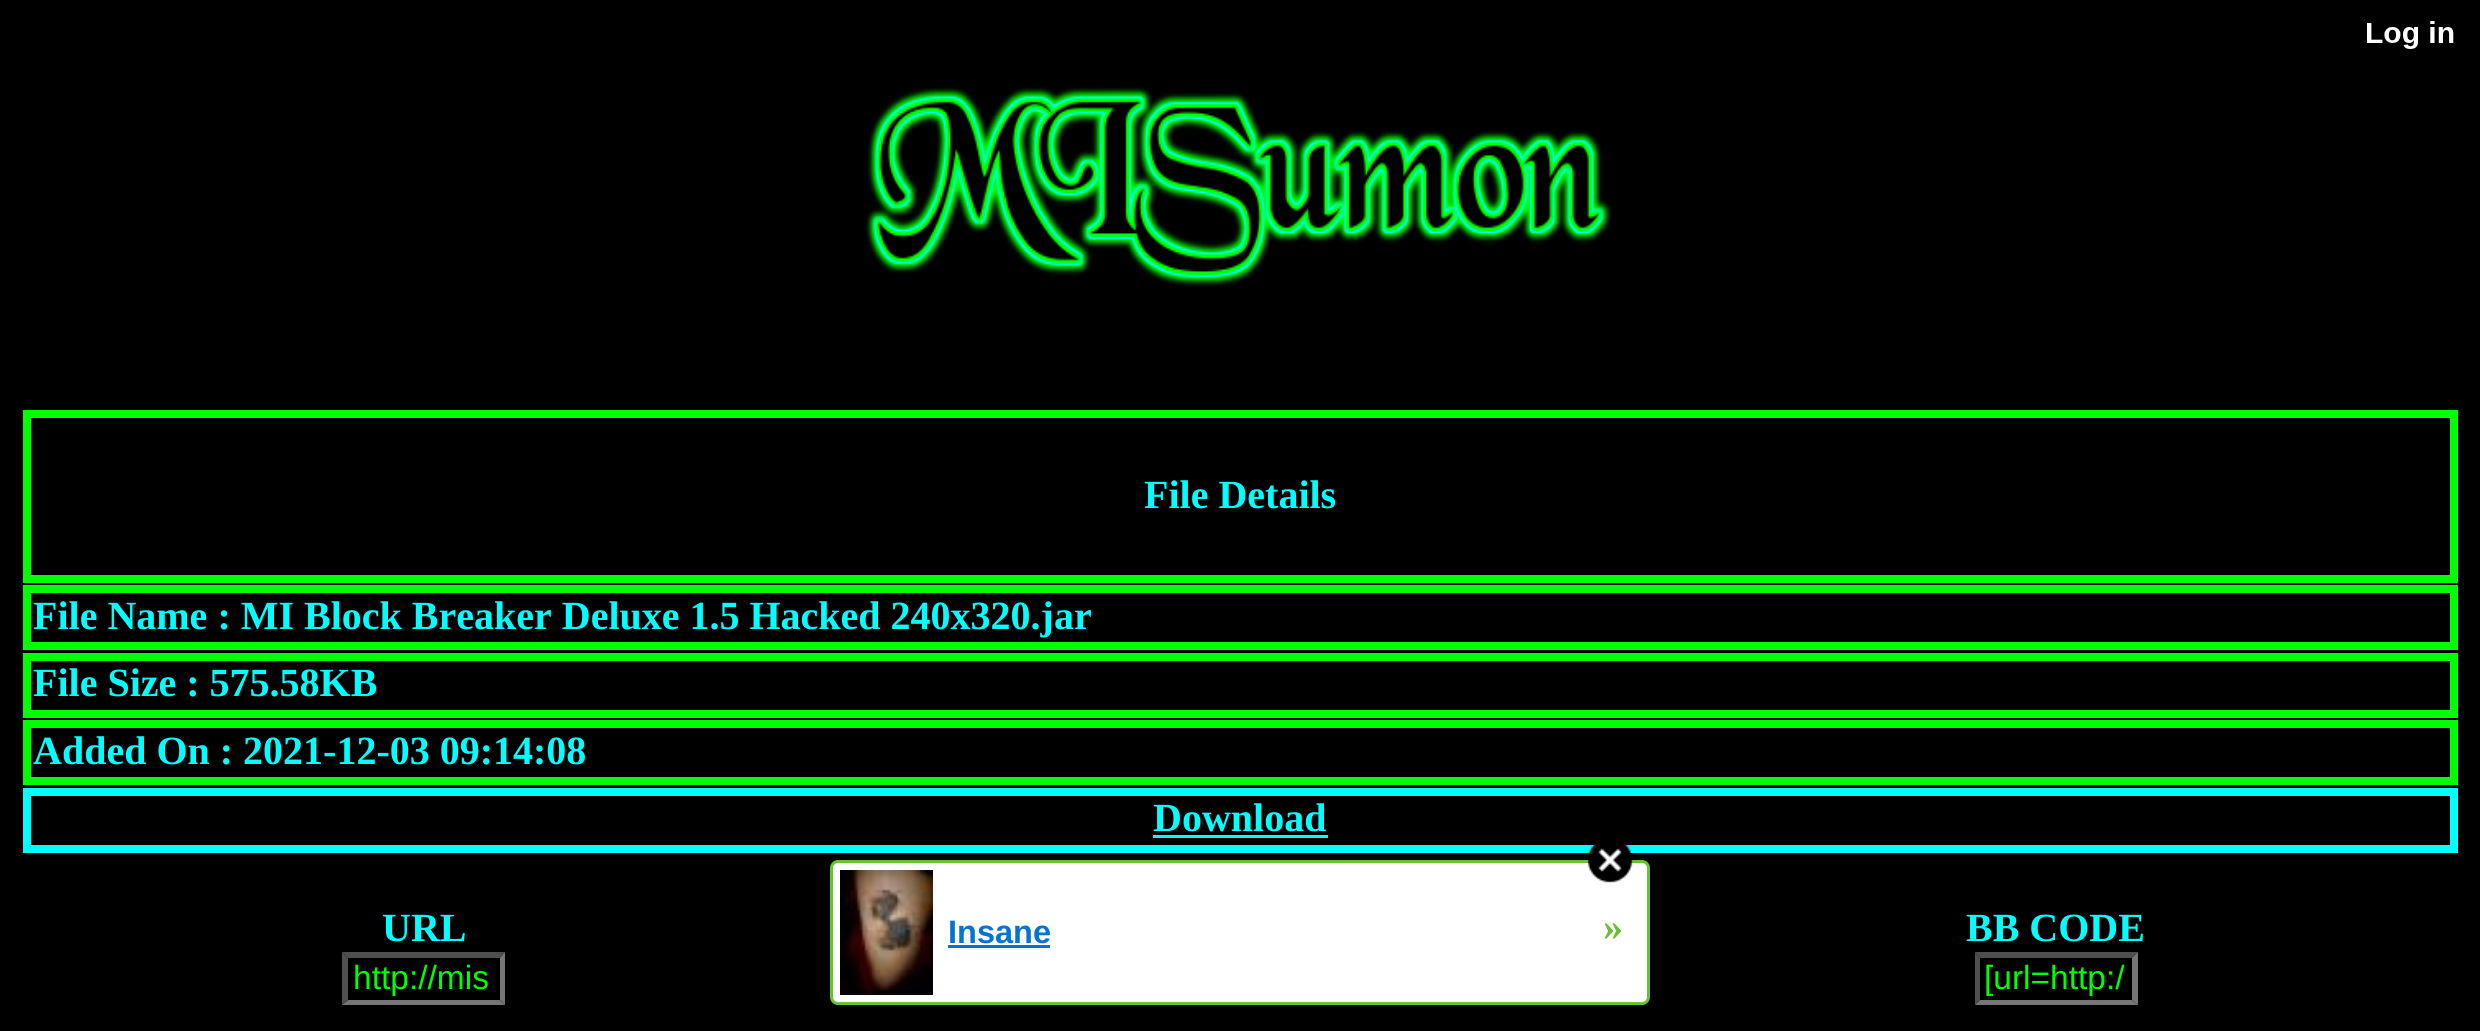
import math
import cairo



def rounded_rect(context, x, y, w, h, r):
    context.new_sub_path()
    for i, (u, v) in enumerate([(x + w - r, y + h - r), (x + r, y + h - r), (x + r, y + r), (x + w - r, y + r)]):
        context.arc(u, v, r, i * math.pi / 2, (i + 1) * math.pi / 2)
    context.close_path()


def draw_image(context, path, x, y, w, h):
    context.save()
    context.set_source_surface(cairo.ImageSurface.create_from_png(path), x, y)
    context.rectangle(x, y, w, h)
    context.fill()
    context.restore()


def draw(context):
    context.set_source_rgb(0, 0, 0)
    context.paint()
    draw_image(context, "images/1.png", 2367, 21, 87, 28)
    draw_image(context, "images/2.png", 866, 86, 746, 201)
    context.rectangle(27, 414, 2427, 165)
    context.set_source_rgb(0, 1, 0)
    context.set_line_width(8)
    context.stroke()
    context.rectangle(27, 589, 2427, 57)
    context.stroke()
    context.rectangle(27, 657, 2427, 57)
    context.stroke()
    context.rectangle(27, 724, 2427, 57)
    context.stroke()
    context.rectangle(27, 792, 2427, 57)
    context.set_source_rgb(0, 1, 1)
    context.stroke()
    context.rectangle(1153, 835, 175, 3)
    context.fill()
    context.set_source_rgb(79 / 255, 79 / 255, 79 / 255)
    context.new_path()
    context.move_to(342, 952)
    context.line_to(505, 952)
    context.line_to(500, 958)
    context.line_to(348, 958)
    context.close_path()
    context.fill()
    context.set_source_rgb(118 / 255, 118 / 255, 118 / 255)
    context.new_path()
    context.move_to(505, 952)
    context.line_to(505, 1005)
    context.line_to(500, 1000)
    context.line_to(500, 958)
    context.close_path()
    context.fill()
    context.new_path()
    context.move_to(505, 1005)
    context.line_to(342, 1005)
    context.line_to(348, 1000)
    context.line_to(500, 1000)
    context.close_path()
    context.fill()
    context.set_source_rgb(79 / 255, 79 / 255, 79 / 255)
    context.new_path()
    context.move_to(342, 1005)
    context.line_to(342, 952)
    context.line_to(348, 958)
    context.line_to(348, 1000)
    context.close_path()
    context.fill()
    context.new_path()
    context.move_to(1975, 952)
    context.line_to(2138, 952)
    context.line_to(2132, 958)
    context.line_to(1980, 958)
    context.close_path()
    context.fill()
    context.set_source_rgb(118 / 255, 118 / 255, 118 / 255)
    context.new_path()
    context.move_to(2138, 952)
    context.line_to(2138, 1005)
    context.line_to(2132, 1000)
    context.line_to(2132, 958)
    context.close_path()
    context.fill()
    context.new_path()
    context.move_to(2138, 1005)
    context.line_to(1975, 1005)
    context.line_to(1980, 1000)
    context.line_to(2132, 1000)
    context.close_path()
    context.fill()
    context.set_source_rgb(79 / 255, 79 / 255, 79 / 255)
    context.new_path()
    context.move_to(1975, 1005)
    context.line_to(1975, 952)
    context.line_to(1980, 958)
    context.line_to(1980, 1000)
    context.close_path()
    context.fill()
    context.set_source_rgb(1, 1, 1)
    rounded_rect(context, 831.5, 861.5, 817, 142, 6.5)
    context.fill_preserve()
    context.set_source_rgb(107 / 255, 193 / 255, 53 / 255)
    context.set_line_width(3)
    context.stroke()
    draw_image(context, "images/3.png", 1587, 845, 46, 38)
    draw_image(context, "images/4.png", 840, 870, 93, 125)
    context.set_source_rgb(2 / 255, 116 / 255, 212 / 255)
    context.rectangle(948, 945, 102, 3)
    context.fill()
    context.select_font_face("Liberation Serif", cairo.FontSlant.NORMAL, cairo.FontWeight.BOLD)
    context.set_font_size(40)
    context.set_source_rgb(0, 1, 1)
    context.move_to(1144, 508)
    context.show_text("File Details")
    context.move_to(33, 629)
    context.show_text("File Name : MI Block Breaker Deluxe 1.5 Hacked 240x320.jar")
    context.move_to(33, 696)
    context.show_text("File Size : 575.58KB")
    context.move_to(33, 764)
    context.show_text("Added On : 2021-12-03 09:14:08")
    context.move_to(1153, 831)
    context.show_text("Download")
    context.move_to(382, 941)
    context.show_text("URL")
    context.select_font_face("Liberation Sans")
    context.set_font_size(33.5)
    context.set_source_rgb(0, 1, 0)
    context.move_to(353, 989)
    context.show_text("http://mis")
    context.select_font_face("Liberation Serif", cairo.FontSlant.NORMAL, cairo.FontWeight.BOLD)
    context.set_font_size(40)
    context.set_source_rgb(0, 1, 1)
    context.move_to(1966, 941)
    context.show_text("BB CODE")
    context.select_font_face("Liberation Sans")
    context.set_font_size(33.5)
    context.set_source_rgb(0, 1, 0)
    context.move_to(1984, 989)
    context.show_text("[url=http:/")
    context.select_font_face("Liberation Sans", cairo.FontSlant.NORMAL, cairo.FontWeight.BOLD)
    context.set_font_size(32.5)
    context.set_source_rgb(2 / 255, 116 / 255, 212 / 255)
    context.move_to(948, 943)
    context.show_text("Insane")
    context.select_font_face("Liberation Serif", cairo.FontSlant.NORMAL, cairo.FontWeight.BOLD)
    context.set_font_size(40)
    context.set_source_rgb(107 / 255, 193 / 255, 53 / 255)
    context.move_to(1603, 940)
    context.show_text("»")


surface = cairo.ImageSurface(cairo.Format.RGB24, 2480, 1031)
context = cairo.Context(surface)
options = cairo.FontOptions()
options.set_hint_metrics(cairo.HintMetrics.OFF)
options.set_hint_style(cairo.HintStyle.NONE)
context.set_font_options(options)
context.set_miter_limit(4)
draw(context)
surface.write_to_png("out.png")
